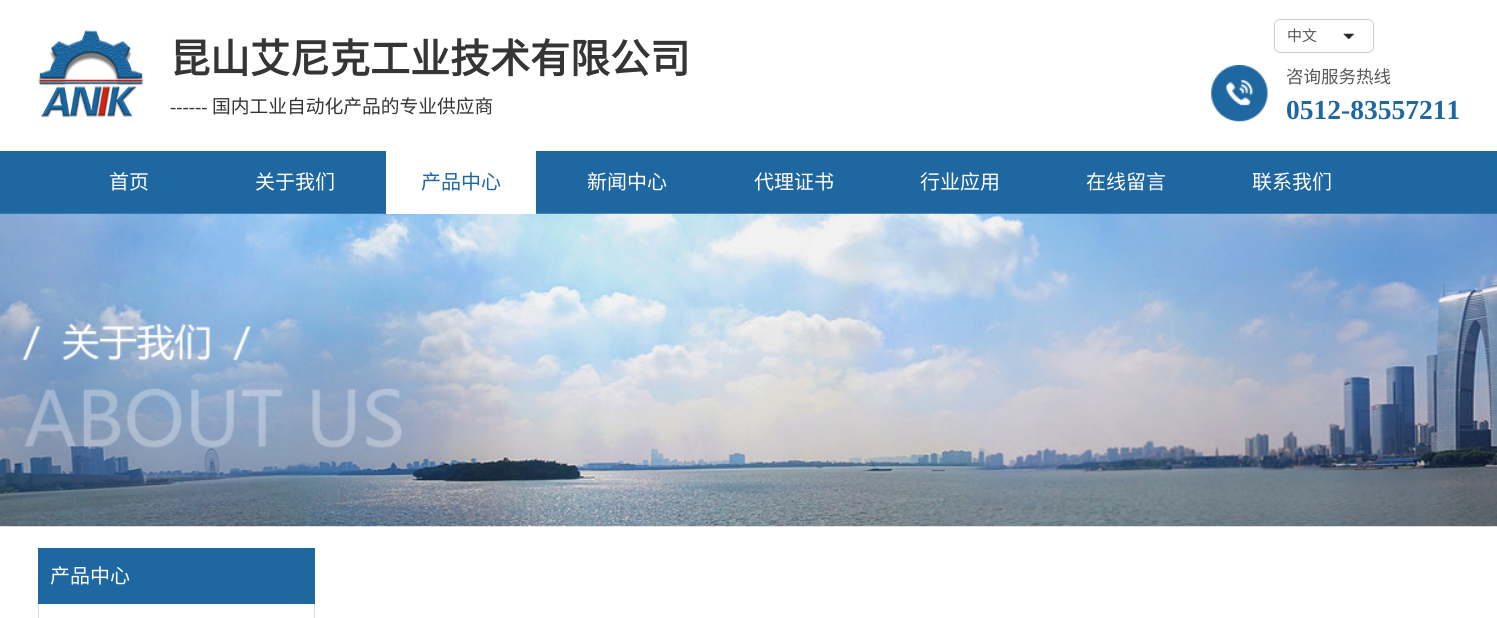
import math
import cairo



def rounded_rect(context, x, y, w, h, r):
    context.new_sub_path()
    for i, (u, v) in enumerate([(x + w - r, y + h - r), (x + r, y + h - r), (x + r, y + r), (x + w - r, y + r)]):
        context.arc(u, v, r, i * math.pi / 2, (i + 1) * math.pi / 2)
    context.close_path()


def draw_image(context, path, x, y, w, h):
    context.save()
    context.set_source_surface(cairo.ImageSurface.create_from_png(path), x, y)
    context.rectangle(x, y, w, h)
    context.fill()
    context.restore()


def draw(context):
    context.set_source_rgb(1, 1, 1)
    context.paint()
    draw_image(context, "images/1.png", 38, 30, 106, 88)
    draw_image(context, "images/2.png", 1343, 33, 11, 6)
    rounded_rect(context, 1274.5, 19.5, 99, 33, 5.5)
    context.set_source_rgb(204 / 255, 204 / 255, 204 / 255)
    context.set_line_width(1)
    context.stroke()
    draw_image(context, "images/3.png", 1211, 65, 57, 57)
    context.set_source_rgb(30 / 255, 103 / 255, 160 / 255)
    context.rectangle(0, 151, 1497, 63)
    context.fill()
    draw_image(context, "images/4.png", 0, 213, 1497, 314)
    context.set_source_rgb(1, 1, 1)
    context.rectangle(386, 151, 150, 63)
    context.fill()
    context.set_source_rgb(30 / 255, 103 / 255, 160 / 255)
    context.rectangle(38, 548, 277, 56)
    context.fill()
    context.set_source_rgb(218 / 255, 218 / 255, 218 / 255)
    context.rectangle(314, 604, 1, 14)
    context.fill()
    context.rectangle(38, 604, 1, 14)
    context.fill()
    context.select_font_face("Noto Sans CJK SC", cairo.FontSlant.NORMAL, cairo.FontWeight.BOLD)
    context.set_font_size(40)
    context.set_source_rgb(53 / 255, 53 / 255, 53 / 255)
    context.move_to(170, 73)
    context.show_text("昆山艾尼克工业技术有限公司")
    context.select_font_face("Liberation Serif")
    context.set_font_size(18.75)
    context.move_to(170, 113)
    context.show_text("------")
    context.select_font_face("Noto Sans CJK SC")
    context.move_to(212, 113)
    context.show_text("国内工业自动化产品的专业供应商")
    context.set_font_size(15)
    context.set_source_rgb(89 / 255, 87 / 255, 87 / 255)
    context.move_to(1287, 41)
    context.show_text("中文")
    context.set_font_size(17.5)
    context.move_to(1286, 83)
    context.show_text("咨询服务热线")
    context.select_font_face("Liberation Serif", cairo.FontSlant.NORMAL, cairo.FontWeight.BOLD)
    context.set_font_size(27.5)
    context.set_source_rgb(30 / 255, 103 / 255, 160 / 255)
    context.move_to(1286, 119)
    context.show_text("0512-83557211")
    context.select_font_face("Noto Sans CJK SC")
    context.set_font_size(20)
    context.set_source_rgb(1, 1, 1)
    context.move_to(109, 189)
    context.show_text("首页")
    context.move_to(255, 189)
    context.show_text("关于我们")
    context.set_source_rgb(30 / 255, 103 / 255, 160 / 255)
    context.move_to(421, 189)
    context.show_text("产品中心")
    context.set_source_rgb(1, 1, 1)
    context.move_to(587, 189)
    context.show_text("新闻中心")
    context.move_to(754, 189)
    context.show_text("代理证书")
    context.move_to(920, 189)
    context.show_text("行业应用")
    context.move_to(1086, 189)
    context.show_text("在线留言")
    context.move_to(1252, 189)
    context.show_text("联系我们")
    context.move_to(50, 583)
    context.show_text("产品中心")


surface = cairo.ImageSurface(cairo.Format.RGB24, 1497, 618)
context = cairo.Context(surface)
options = cairo.FontOptions()
options.set_hint_metrics(cairo.HintMetrics.OFF)
options.set_hint_style(cairo.HintStyle.NONE)
context.set_font_options(options)
context.set_miter_limit(4)
draw(context)
surface.write_to_png("out.png")
